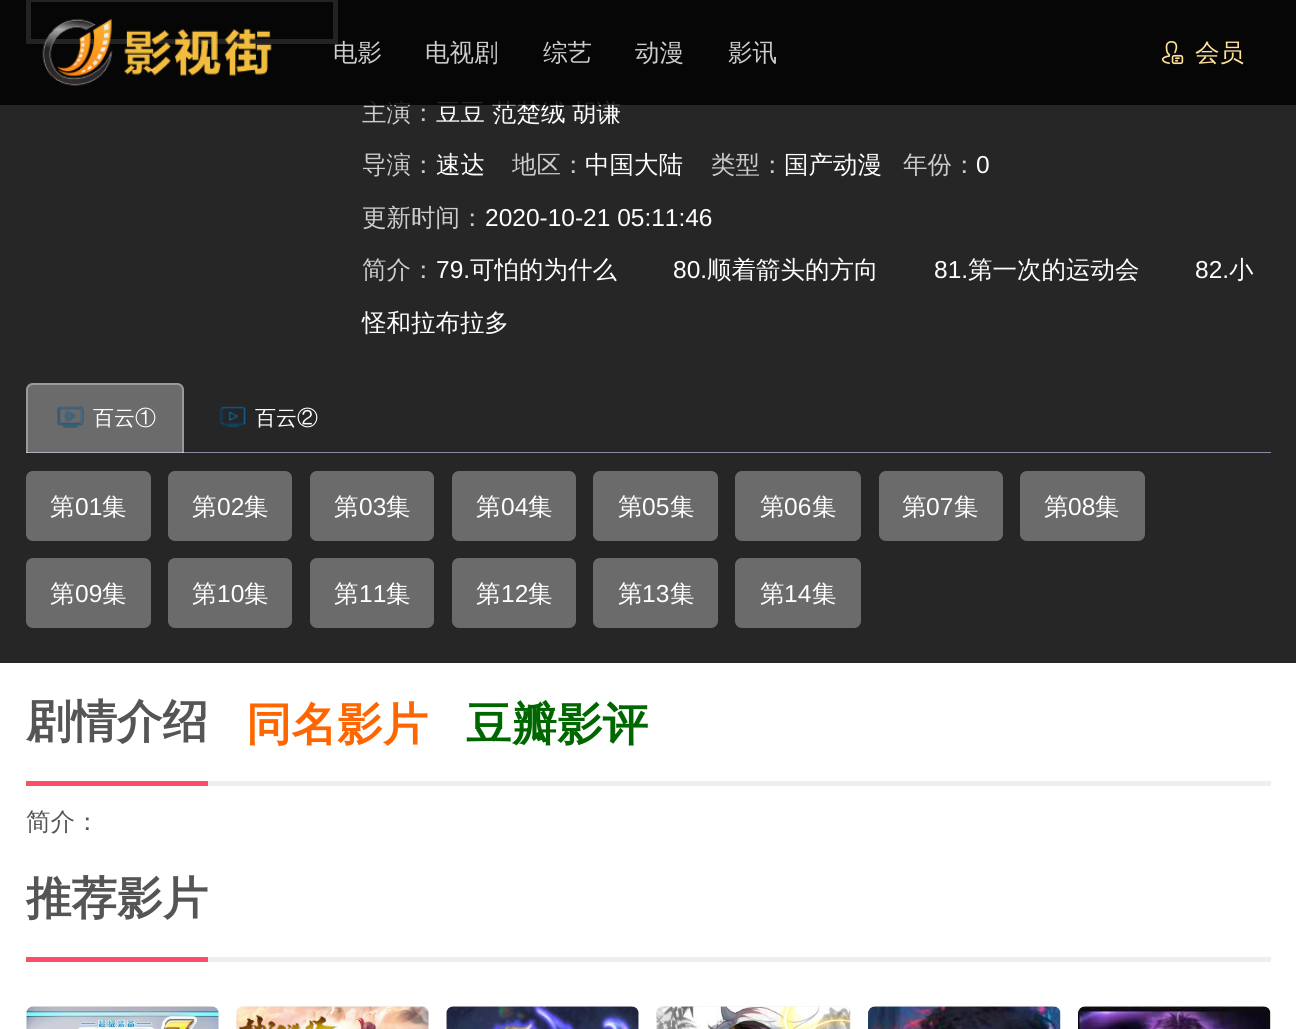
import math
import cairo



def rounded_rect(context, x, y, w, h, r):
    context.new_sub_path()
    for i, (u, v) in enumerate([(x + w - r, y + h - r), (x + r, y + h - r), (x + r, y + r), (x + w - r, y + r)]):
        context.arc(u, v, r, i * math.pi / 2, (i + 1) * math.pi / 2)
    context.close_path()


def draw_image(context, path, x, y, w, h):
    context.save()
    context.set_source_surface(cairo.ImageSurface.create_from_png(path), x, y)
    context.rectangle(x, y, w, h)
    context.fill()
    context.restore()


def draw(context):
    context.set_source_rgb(1, 1, 1)
    context.paint()
    context.set_source_rgb(38 / 255, 38 / 255, 38 / 255)
    context.rectangle(0, 0, 1296, 663)
    context.fill()
    context.rectangle(28.5, -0.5, 307, 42)
    context.set_source_rgb(239 / 255, 236 / 255, 239 / 255)
    context.set_line_width(5)
    context.stroke()
    context.set_source_rgb(144 / 255, 136 / 255, 160 / 255)
    context.rectangle(26, 452, 1245, 1)
    context.fill()
    context.set_source_rgba(1, 1, 1, 0.32)
    context.new_path()
    context.move_to(33, 383)
    context.line_to(177, 383)
    context.curve_to(181, 383, 184, 386, 184, 390)
    context.line_to(184, 453)
    context.line_to(26, 453)
    context.line_to(26, 390)
    context.curve_to(26, 386, 29, 383, 33, 383)
    context.close_path()
    context.fill()
    context.set_fill_rule(cairo.FillRule.EVEN_ODD)
    context.new_path()
    context.move_to(33, 383)
    context.line_to(177, 383)
    context.curve_to(181, 383, 184, 386, 184, 390)
    context.line_to(184, 453)
    context.line_to(26, 453)
    context.line_to(26, 390)
    context.curve_to(26, 386, 29, 383, 33, 383)
    context.close_path()
    context.move_to(33, 385)
    context.line_to(177, 385)
    context.curve_to(180, 385, 182, 387, 182, 390)
    context.line_to(182, 453)
    context.line_to(28, 453)
    context.line_to(28, 390)
    context.curve_to(28, 387, 30, 385, 33, 385)
    context.close_path()
    context.fill()
    draw_image(context, "images/3.png", 57, 406, 27, 22)
    draw_image(context, "images/4.png", 219, 406, 28, 22)
    context.set_source_rgb(107 / 255, 107 / 255, 107 / 255)
    rounded_rect(context, 26, 471, 125, 70, 7)
    context.fill()
    rounded_rect(context, 168, 471, 124, 70, 7)
    context.fill()
    rounded_rect(context, 310, 471, 124, 70, 7)
    context.fill()
    rounded_rect(context, 452, 471, 124, 70, 7)
    context.fill()
    rounded_rect(context, 593, 471, 125, 70, 7)
    context.fill()
    rounded_rect(context, 735, 471, 126, 70, 7)
    context.fill()
    rounded_rect(context, 879, 471, 124, 70, 7)
    context.fill()
    rounded_rect(context, 1020, 471, 125, 70, 7)
    context.fill()
    rounded_rect(context, 26, 558, 125, 70, 7)
    context.fill()
    rounded_rect(context, 168, 558, 124, 70, 7)
    context.fill()
    rounded_rect(context, 310, 558, 124, 70, 7)
    context.fill()
    rounded_rect(context, 452, 558, 124, 70, 7)
    context.fill()
    rounded_rect(context, 593, 558, 125, 70, 7)
    context.fill()
    rounded_rect(context, 735, 558, 126, 70, 7)
    context.fill()
    context.set_source_rgb(253 / 255, 76 / 255, 105 / 255)
    context.rectangle(26, 781, 182, 5)
    context.fill()
    context.set_source_rgb(238 / 255, 238 / 255, 238 / 255)
    context.rectangle(208, 781, 1063, 5)
    context.fill()
    context.set_source_rgb(253 / 255, 76 / 255, 105 / 255)
    context.rectangle(26, 957, 182, 5)
    context.fill()
    context.set_source_rgb(238 / 255, 238 / 255, 238 / 255)
    context.rectangle(208, 957, 1063, 5)
    context.fill()
    context.set_source_rgb(242 / 255, 242 / 255, 242 / 255)
    rounded_rect(context, 26, 1006, 193, 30, 7)
    context.fill()
    draw_image(context, "images/5.png", 26, 1006, 193, 23)
    rounded_rect(context, 236, 1006, 193, 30, 7)
    context.fill()
    draw_image(context, "images/6.png", 236, 1006, 193, 23)
    rounded_rect(context, 446, 1006, 193, 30, 7)
    context.fill()
    draw_image(context, "images/7.png", 446, 1006, 193, 23)
    rounded_rect(context, 656, 1006, 195, 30, 7)
    context.fill()
    draw_image(context, "images/8.png", 656, 1006, 195, 23)
    rounded_rect(context, 868, 1006, 193, 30, 7)
    context.fill()
    draw_image(context, "images/9.png", 868, 1006, 193, 23)
    rounded_rect(context, 1078, 1006, 193, 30, 7)
    context.fill()
    draw_image(context, "images/10.png", 1078, 1006, 193, 23)
    context.select_font_face("WenQuanYi Zen Hei Medium")
    context.set_font_size(24.5)
    context.set_source_rgb(204 / 255, 204 / 255, 204 / 255)
    context.move_to(362, 121)
    context.show_text("主演：")
    context.set_source_rgb(1, 1, 1)
    context.move_to(436, 121)
    context.show_text("豆豆")
    context.move_to(492, 121)
    context.show_text("范楚绒")
    context.move_to(572, 121)
    context.show_text("胡谦")
    context.set_source_rgba(0, 0, 0, 0.85)
    context.rectangle(0, 0, 1296, 105)
    context.fill()
    context.set_source_rgb(1, 225 / 255, 153 / 255)
    context.move_to(1195, 61)
    context.show_text("会员")
    draw_image(context, "images/2.png", 1161, 41, 23, 24)
    draw_image(context, "images/1.png", 42, 18, 230, 68)
    context.set_source_rgb(204 / 255, 204 / 255, 204 / 255)
    context.move_to(728, 61)
    context.show_text("影讯")
    context.move_to(635, 61)
    context.show_text("动漫")
    context.move_to(543, 61)
    context.show_text("综艺")
    context.move_to(425, 61)
    context.show_text("电视剧")
    context.move_to(333, 61)
    context.show_text("电影")
    context.move_to(362, 173)
    context.show_text("导演：")
    context.set_source_rgb(1, 1, 1)
    context.move_to(436, 173)
    context.show_text("速达")
    context.set_source_rgb(204 / 255, 204 / 255, 204 / 255)
    context.move_to(512, 173)
    context.show_text("地区：")
    context.set_source_rgb(1, 1, 1)
    context.move_to(585, 173)
    context.show_text("中国大陆")
    context.set_source_rgb(204 / 255, 204 / 255, 204 / 255)
    context.move_to(711, 173)
    context.show_text("类型：")
    context.set_source_rgb(1, 1, 1)
    context.move_to(784, 173)
    context.show_text("国产动漫")
    context.set_source_rgb(204 / 255, 204 / 255, 204 / 255)
    context.move_to(903, 173)
    context.show_text("年份：")
    context.select_font_face("Liberation Sans")
    context.set_source_rgb(1, 1, 1)
    context.move_to(976, 173)
    context.show_text("0")
    context.select_font_face("WenQuanYi Zen Hei Medium")
    context.set_source_rgb(204 / 255, 204 / 255, 204 / 255)
    context.move_to(362, 226)
    context.show_text("更新时间：")
    context.select_font_face("Liberation Sans")
    context.set_source_rgb(1, 1, 1)
    context.move_to(485, 226)
    context.show_text("2020-10-21 05:11:46")
    context.select_font_face("WenQuanYi Zen Hei Medium")
    context.set_source_rgb(204 / 255, 204 / 255, 204 / 255)
    context.move_to(362, 278)
    context.show_text("简介：")
    context.select_font_face("Liberation Sans")
    context.set_source_rgb(1, 1, 1)
    context.move_to(436, 278)
    context.show_text("79.")
    context.select_font_face("WenQuanYi Zen Hei Medium")
    context.move_to(470, 278)
    context.show_text("可怕的为什么")
    context.select_font_face("Liberation Sans")
    context.move_to(673, 278)
    context.show_text("80.")
    context.select_font_face("WenQuanYi Zen Hei Medium")
    context.move_to(707, 278)
    context.show_text("顺着箭头的方向")
    context.select_font_face("Liberation Sans")
    context.move_to(934, 278)
    context.show_text("81.")
    context.select_font_face("WenQuanYi Zen Hei Medium")
    context.move_to(968, 278)
    context.show_text("第一次的运动会")
    context.select_font_face("Liberation Sans")
    context.move_to(1195, 278)
    context.show_text("82.")
    context.select_font_face("WenQuanYi Zen Hei Medium")
    context.move_to(1229, 278)
    context.show_text("小")
    context.move_to(362, 331)
    context.show_text("怪和拉布拉多")
    context.set_font_size(21)
    context.move_to(93, 425)
    context.show_text("百云①")
    context.move_to(255, 425)
    context.show_text("百云②")
    context.set_font_size(24.5)
    context.move_to(50, 515)
    context.show_text("第")
    context.select_font_face("Liberation Sans")
    context.move_to(75, 515)
    context.show_text("01")
    context.select_font_face("WenQuanYi Zen Hei Medium")
    context.move_to(102, 515)
    context.show_text("集")
    context.move_to(192, 515)
    context.show_text("第")
    context.select_font_face("Liberation Sans")
    context.move_to(217, 515)
    context.show_text("02")
    context.select_font_face("WenQuanYi Zen Hei Medium")
    context.move_to(244, 515)
    context.show_text("集")
    context.move_to(334, 515)
    context.show_text("第")
    context.select_font_face("Liberation Sans")
    context.move_to(359, 515)
    context.show_text("03")
    context.select_font_face("WenQuanYi Zen Hei Medium")
    context.move_to(386, 515)
    context.show_text("集")
    context.move_to(476, 515)
    context.show_text("第")
    context.select_font_face("Liberation Sans")
    context.move_to(501, 515)
    context.show_text("04")
    context.select_font_face("WenQuanYi Zen Hei Medium")
    context.move_to(528, 515)
    context.show_text("集")
    context.move_to(618, 515)
    context.show_text("第")
    context.select_font_face("Liberation Sans")
    context.move_to(642, 515)
    context.show_text("05")
    context.select_font_face("WenQuanYi Zen Hei Medium")
    context.move_to(670, 515)
    context.show_text("集")
    context.move_to(760, 515)
    context.show_text("第")
    context.select_font_face("Liberation Sans")
    context.move_to(784, 515)
    context.show_text("06")
    context.select_font_face("WenQuanYi Zen Hei Medium")
    context.move_to(812, 515)
    context.show_text("集")
    context.move_to(902, 515)
    context.show_text("第")
    context.select_font_face("Liberation Sans")
    context.move_to(926, 515)
    context.show_text("07")
    context.select_font_face("WenQuanYi Zen Hei Medium")
    context.move_to(954, 515)
    context.show_text("集")
    context.move_to(1044, 515)
    context.show_text("第")
    context.select_font_face("Liberation Sans")
    context.move_to(1068, 515)
    context.show_text("08")
    context.select_font_face("WenQuanYi Zen Hei Medium")
    context.move_to(1095, 515)
    context.show_text("集")
    context.move_to(50, 602)
    context.show_text("第")
    context.select_font_face("Liberation Sans")
    context.move_to(75, 602)
    context.show_text("09")
    context.select_font_face("WenQuanYi Zen Hei Medium")
    context.move_to(102, 602)
    context.show_text("集")
    context.move_to(192, 602)
    context.show_text("第")
    context.select_font_face("Liberation Sans")
    context.move_to(217, 602)
    context.show_text("10")
    context.select_font_face("WenQuanYi Zen Hei Medium")
    context.move_to(244, 602)
    context.show_text("集")
    context.move_to(334, 602)
    context.show_text("第")
    context.select_font_face("Liberation Sans")
    context.move_to(359, 602)
    context.show_text("11")
    context.select_font_face("WenQuanYi Zen Hei Medium")
    context.move_to(386, 602)
    context.show_text("集")
    context.move_to(476, 602)
    context.show_text("第")
    context.select_font_face("Liberation Sans")
    context.move_to(501, 602)
    context.show_text("12")
    context.select_font_face("WenQuanYi Zen Hei Medium")
    context.move_to(528, 602)
    context.show_text("集")
    context.move_to(618, 602)
    context.show_text("第")
    context.select_font_face("Liberation Sans")
    context.move_to(642, 602)
    context.show_text("13")
    context.select_font_face("WenQuanYi Zen Hei Medium")
    context.move_to(670, 602)
    context.show_text("集")
    context.move_to(760, 602)
    context.show_text("第")
    context.select_font_face("Liberation Sans")
    context.move_to(784, 602)
    context.show_text("14")
    context.select_font_face("WenQuanYi Zen Hei Medium")
    context.move_to(812, 602)
    context.show_text("集")
    context.select_font_face("WenQuanYi Zen Hei", cairo.FontSlant.NORMAL, cairo.FontWeight.BOLD)
    context.set_font_size(45.5)
    context.set_source_rgb(85 / 255, 85 / 255, 85 / 255)
    context.move_to(26, 737)
    context.show_text("剧情介绍")
    context.set_source_rgb(1, 102 / 255, 0)
    context.move_to(246, 740)
    context.show_text("同名影片")
    context.set_source_rgb(0, 102 / 255, 0)
    context.move_to(466, 740)
    context.show_text("豆瓣影评")
    context.select_font_face("WenQuanYi Zen Hei Medium")
    context.set_font_size(24.5)
    context.set_source_rgb(85 / 255, 85 / 255, 85 / 255)
    context.move_to(26, 830)
    context.show_text("简介：")
    context.select_font_face("WenQuanYi Zen Hei", cairo.FontSlant.NORMAL, cairo.FontWeight.BOLD)
    context.set_font_size(45.5)
    context.move_to(26, 914)
    context.show_text("推荐影片")


surface = cairo.ImageSurface(cairo.Format.RGB24, 1296, 1029)
context = cairo.Context(surface)
options = cairo.FontOptions()
options.set_hint_metrics(cairo.HintMetrics.OFF)
options.set_hint_style(cairo.HintStyle.NONE)
context.set_font_options(options)
context.set_miter_limit(4)
draw(context)
surface.write_to_png("out.png")
